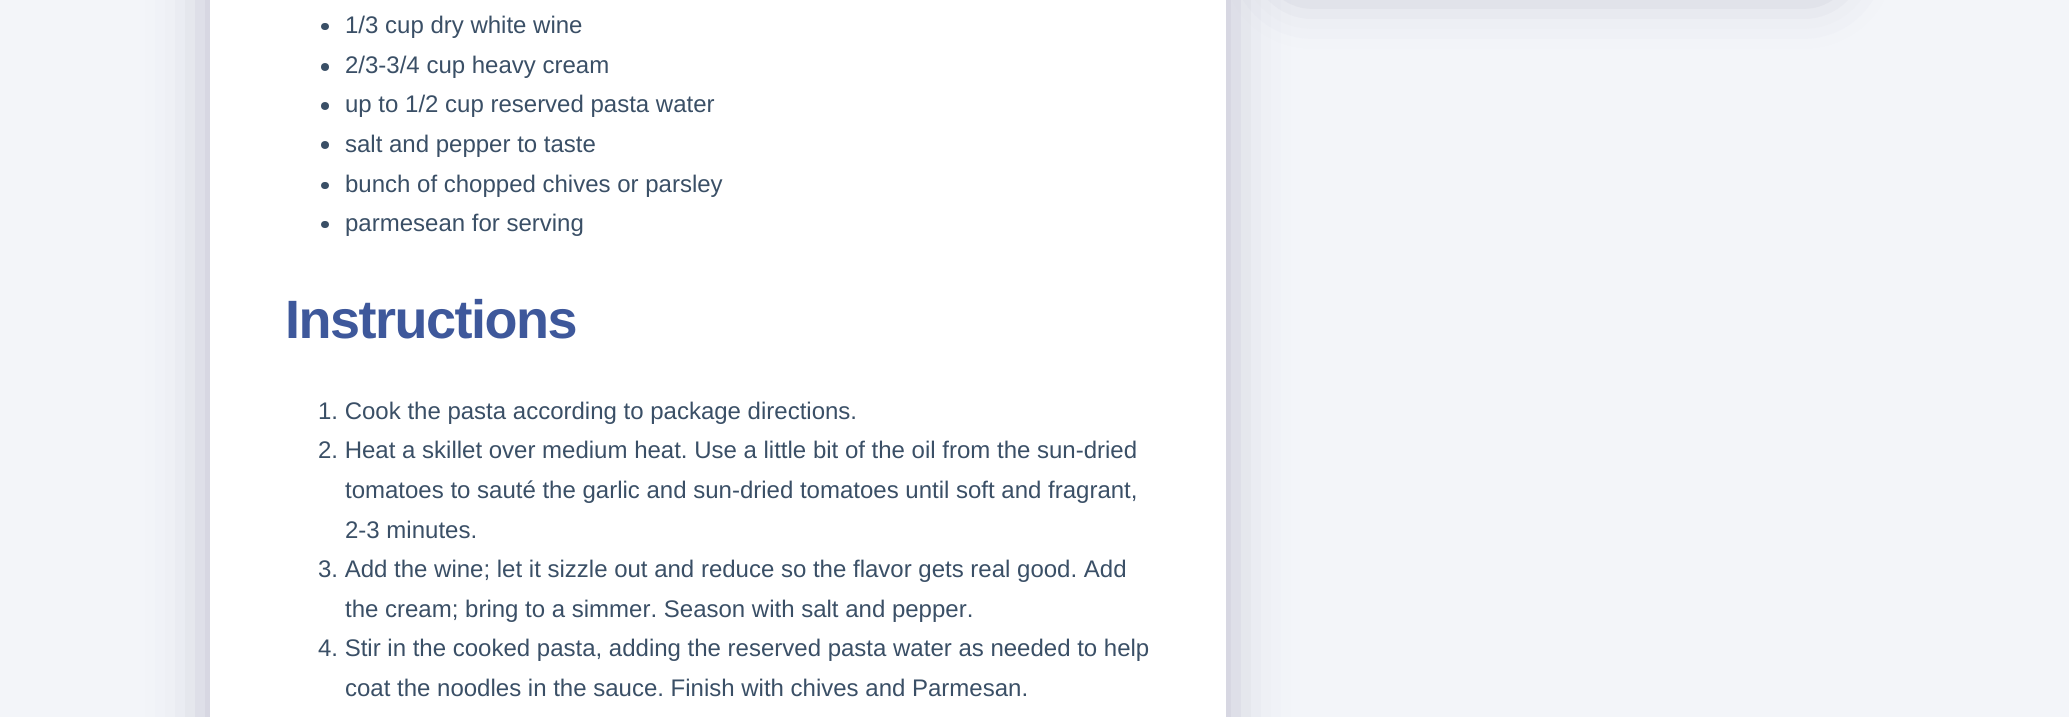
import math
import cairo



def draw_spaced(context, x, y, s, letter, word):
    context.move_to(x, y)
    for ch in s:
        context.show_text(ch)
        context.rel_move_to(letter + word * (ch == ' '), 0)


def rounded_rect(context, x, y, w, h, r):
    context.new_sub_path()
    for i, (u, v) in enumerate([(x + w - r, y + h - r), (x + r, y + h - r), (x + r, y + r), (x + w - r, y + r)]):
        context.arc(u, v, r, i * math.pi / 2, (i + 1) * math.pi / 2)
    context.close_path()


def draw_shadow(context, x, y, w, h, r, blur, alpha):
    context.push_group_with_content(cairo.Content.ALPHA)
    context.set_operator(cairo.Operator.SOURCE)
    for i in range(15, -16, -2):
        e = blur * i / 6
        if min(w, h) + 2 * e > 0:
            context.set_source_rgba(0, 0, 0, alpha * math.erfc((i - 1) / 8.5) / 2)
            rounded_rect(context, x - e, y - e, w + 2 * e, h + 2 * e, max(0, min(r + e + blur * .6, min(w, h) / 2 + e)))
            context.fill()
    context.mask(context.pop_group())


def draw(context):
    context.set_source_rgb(243 / 255, 245 / 255, 249 / 255)
    context.paint()
    context.set_source_rgb(28 / 255, 25 / 255, 73 / 255)
    draw_shadow(context, 210, -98, 1016, 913, 8, 30, 0.27)
    context.set_source_rgb(1, 1, 1)
    context.rectangle(210, 0, 1016, 717)
    context.fill()
    context.set_source_rgb(58 / 255, 79 / 255, 102 / 255)
    rounded_rect(context, 321, 23, 8, 7, 3.5)
    context.fill()
    context.arc(325, 67, 4, 0, 2 * math.pi)
    context.fill()
    context.arc(325, 106, 4, 0, 2 * math.pi)
    context.fill()
    context.arc(325, 145, 4, 0, 2 * math.pi)
    context.fill()
    rounded_rect(context, 321, 182, 8, 7, 3.5)
    context.fill()
    rounded_rect(context, 321, 221, 8, 7, 3.5)
    context.fill()
    context.set_source_rgb(28 / 255, 25 / 255, 73 / 255)
    draw_shadow(context, 1286, -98, 544, 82, 8, 30, 0.33)
    context.select_font_face("Liberation Sans")
    context.set_font_size(24)
    context.set_source_rgb(58 / 255, 79 / 255, 102 / 255)
    context.move_to(345, 33)
    context.show_text("1/3 cup dry white wine")
    context.move_to(345, 73)
    context.show_text("2/3-3/4 cup heavy cream")
    context.move_to(345, 112)
    context.show_text("up to 1/2 cup reserved pasta water")
    context.move_to(345, 152)
    context.show_text("salt and pepper to taste")
    context.move_to(345, 192)
    context.show_text("bunch of chopped chives or parsley")
    context.move_to(345, 231)
    context.show_text("parmesean for serving")
    context.select_font_face("Liberation Sans", cairo.FontSlant.NORMAL, cairo.FontWeight.BOLD)
    context.set_font_size(54)
    context.set_source_rgb(62 / 255, 88 / 255, 155 / 255)
    draw_spaced(context, 285, 338, "Instructions", -1.5, 0)
    context.select_font_face("Liberation Sans")
    context.set_font_size(24)
    context.set_source_rgb(58 / 255, 79 / 255, 102 / 255)
    context.move_to(318, 419)
    context.show_text("1. Cook the pasta according to package directions.")
    context.move_to(318, 458)
    context.show_text("2. Heat a skillet over medium heat. Use a little bit of the oil from the sun-dried")
    context.move_to(345, 498)
    context.show_text("tomatoes to sauté the garlic and sun-dried tomatoes until soft and fragrant,")
    context.move_to(345, 538)
    context.show_text("2-3 minutes.")
    context.move_to(318, 577)
    context.show_text("3. Add the wine; let it sizzle out and reduce so the flavor gets real good. Add")
    context.move_to(345, 617)
    context.show_text("the cream; bring to a simmer. Season with salt and pepper.")
    context.move_to(318, 656)
    context.show_text("4. Stir in the cooked pasta, adding the reserved pasta water as needed to help")
    context.move_to(345, 696)
    context.show_text("coat the noodles in the sauce. Finish with chives and Parmesan.")


surface = cairo.ImageSurface(cairo.Format.RGB24, 2069, 717)
context = cairo.Context(surface)
options = cairo.FontOptions()
options.set_hint_metrics(cairo.HintMetrics.OFF)
options.set_hint_style(cairo.HintStyle.NONE)
context.set_font_options(options)
context.set_miter_limit(4)
draw(context)
surface.write_to_png("out.png")
